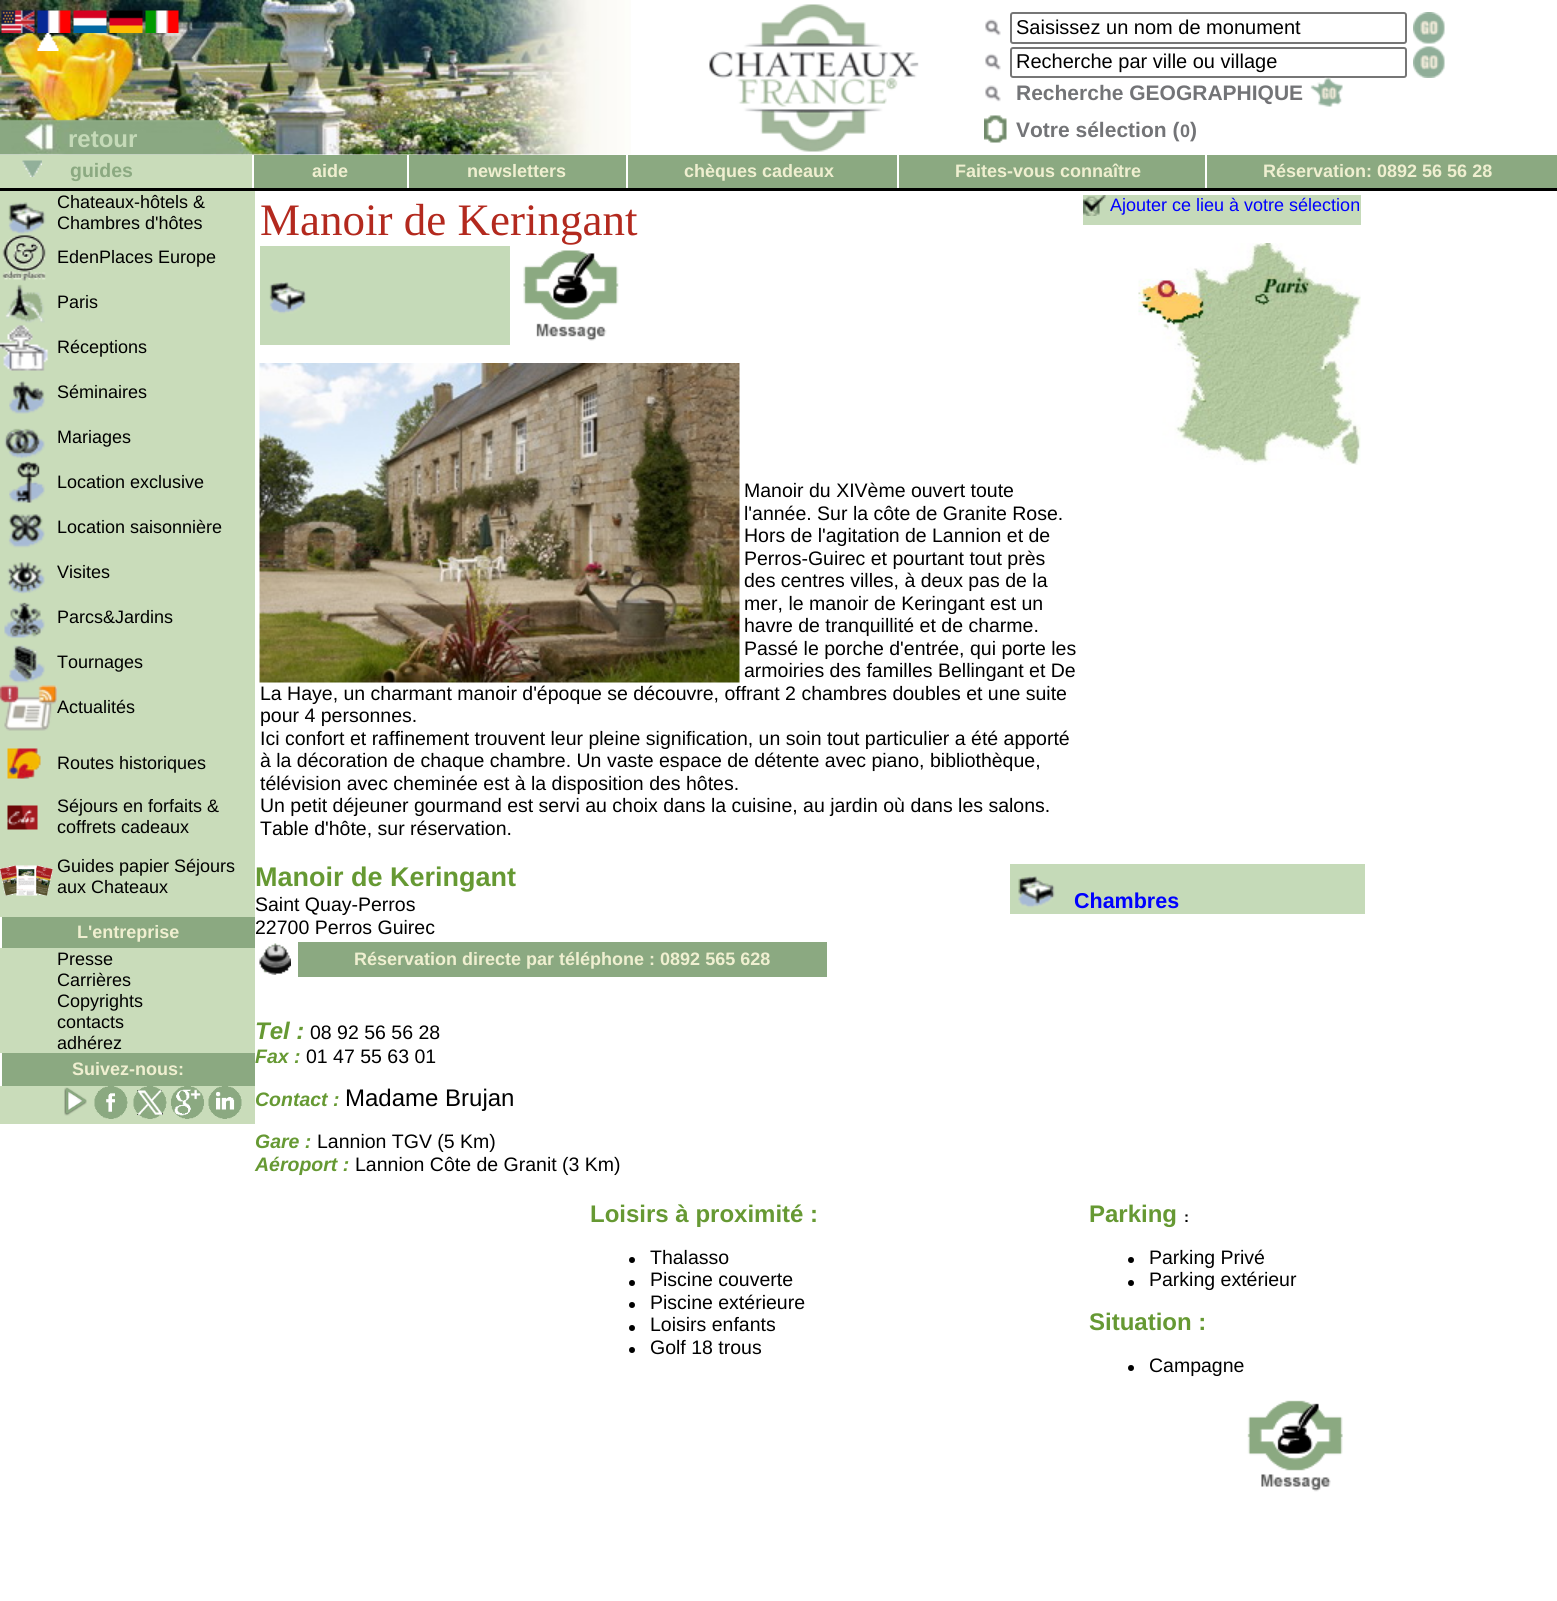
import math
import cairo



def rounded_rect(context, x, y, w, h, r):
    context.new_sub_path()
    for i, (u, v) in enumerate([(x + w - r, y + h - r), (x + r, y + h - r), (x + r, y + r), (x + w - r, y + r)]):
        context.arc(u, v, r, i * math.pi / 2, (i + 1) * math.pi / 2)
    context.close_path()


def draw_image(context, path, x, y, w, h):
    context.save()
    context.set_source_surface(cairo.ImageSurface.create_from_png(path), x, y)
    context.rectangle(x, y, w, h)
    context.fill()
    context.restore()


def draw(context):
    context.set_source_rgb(1, 1, 1)
    context.paint()
    draw_image(context, "images/1.png", 0, 0, 631, 155)
    draw_image(context, "images/2.png", 1, 10, 34, 23)
    draw_image(context, "images/3.png", 37, 10, 34, 23)
    draw_image(context, "images/4.png", 37, 33, 22, 18)
    draw_image(context, "images/5.png", 73, 10, 34, 23)
    draw_image(context, "images/6.png", 109, 10, 34, 23)
    draw_image(context, "images/7.png", 145, 10, 34, 23)
    draw_image(context, "images/8.png", 709, 4, 210, 148)
    draw_image(context, "images/9.png", 985, 19, 16, 17)
    rounded_rect(context, 1011, 13, 395, 30, 2)
    context.set_source_rgb(118 / 255, 118 / 255, 118 / 255)
    context.stroke()
    draw_image(context, "images/10.png", 1413, 12, 32, 32)
    draw_image(context, "images/11.png", 985, 53, 16, 18)
    rounded_rect(context, 1011, 48, 395, 29, 2)
    context.stroke()
    draw_image(context, "images/12.png", 1413, 46, 32, 32)
    draw_image(context, "images/9.png", 985, 85, 16, 17)
    draw_image(context, "images/13.png", 1310, 77, 33, 30)
    draw_image(context, "images/14.png", 984, 115, 23, 28)
    context.set_source_rgb(201 / 255, 220 / 255, 186 / 255)
    context.rectangle(0, 155, 252, 33)
    context.fill()
    draw_image(context, "images/15.png", 22, 160, 20, 17)
    context.set_source_rgb(139 / 255, 169 / 255, 129 / 255)
    context.rectangle(254, 155, 153, 33)
    context.fill()
    context.rectangle(409, 155, 217, 33)
    context.fill()
    context.rectangle(628, 155, 269, 33)
    context.fill()
    context.rectangle(899, 155, 306, 33)
    context.fill()
    context.rectangle(1207, 155, 350, 33)
    context.fill()
    context.set_source_rgb(0, 0, 0)
    context.rectangle(0, 188, 1557, 3)
    context.fill()
    context.set_source_rgb(201 / 255, 220 / 255, 186 / 255)
    context.rectangle(0, 191, 255, 933)
    context.fill()
    draw_image(context, "images/16.png", 8, 202, 38, 32)
    draw_image(context, "images/17.png", 2, 235, 44, 46)
    draw_image(context, "images/18.png", 5, 284, 40, 39)
    draw_image(context, "images/19.png", 0, 325, 49, 46)
    draw_image(context, "images/20.png", 9, 381, 36, 33)
    draw_image(context, "images/21.png", 4, 428, 41, 31)
    draw_image(context, "images/22.png", 9, 461, 36, 42)
    draw_image(context, "images/23.png", 8, 514, 37, 34)
    draw_image(context, "images/24.png", 7, 562, 38, 32)
    draw_image(context, "images/25.png", 4, 602, 41, 36)
    draw_image(context, "images/26.png", 9, 645, 36, 38)
    draw_image(context, "images/27.png", 0, 685, 57, 46)
    draw_image(context, "images/28.png", 7, 748, 34, 31)
    draw_image(context, "images/29.png", 7, 805, 31, 25)
    draw_image(context, "images/30.png", 0, 865, 53, 31)
    context.set_source_rgb(139 / 255, 169 / 255, 129 / 255)
    context.rectangle(2, 917, 253, 31)
    context.fill()
    context.set_source_rgb(1, 1, 1)
    context.rectangle(0, 917, 2, 31)
    context.fill()
    context.set_source_rgb(139 / 255, 169 / 255, 129 / 255)
    context.rectangle(2, 1053, 253, 33)
    context.fill()
    context.set_source_rgb(1, 1, 1)
    context.rectangle(0, 1053, 2, 33)
    context.fill()
    draw_image(context, "images/31.png", 64, 1087, 23, 29)
    draw_image(context, "images/32.png", 94, 1086, 34, 33)
    draw_image(context, "images/33.png", 133, 1086, 34, 33)
    draw_image(context, "images/34.png", 171, 1086, 33, 33)
    draw_image(context, "images/35.png", 208, 1086, 34, 33)
    context.set_source_rgb(197 / 255, 218 / 255, 184 / 255)
    context.rectangle(260, 246, 250, 99)
    context.fill()
    draw_image(context, "images/36.png", 269, 282, 38, 32)
    draw_image(context, "images/37.png", 523, 250, 96, 91)
    draw_image(context, "images/38.png", 259, 363, 481, 320)
    context.set_source_rgb(197 / 255, 218 / 255, 185 / 255)
    context.rectangle(1083, 195, 278, 30)
    context.fill()
    draw_image(context, "images/39.png", 1083, 195, 23, 21)
    draw_image(context, "images/40.png", 1138, 243, 223, 222)
    draw_image(context, "images/41.png", 259, 943, 32, 32)
    context.set_source_rgb(139 / 255, 169 / 255, 129 / 255)
    context.rectangle(298, 942, 529, 35)
    context.fill()
    context.set_source_rgb(197 / 255, 218 / 255, 184 / 255)
    context.rectangle(1010, 864, 355, 50)
    context.fill()
    draw_image(context, "images/42.png", 1018, 876, 37, 32)
    context.set_source_rgb(0, 0, 0)
    context.arc(632, 1260, 3, 0, 2 * math.pi)
    context.fill()
    context.arc(632, 1283, 3, 0, 2 * math.pi)
    context.fill()
    context.arc(632, 1305, 3, 0, 2 * math.pi)
    context.fill()
    context.arc(632, 1328, 3, 0, 2 * math.pi)
    context.fill()
    context.arc(632, 1350, 3, 0, 2 * math.pi)
    context.fill()
    context.arc(1131, 1260, 3, 0, 2 * math.pi)
    context.fill()
    context.arc(1131, 1283, 3, 0, 2 * math.pi)
    context.fill()
    context.arc(1131, 1368, 3, 0, 2 * math.pi)
    context.fill()
    draw_image(context, "images/43.png", 1247, 1400, 96, 92)
    context.select_font_face("Liberation Sans", cairo.FontSlant.NORMAL, cairo.FontWeight.BOLD)
    context.set_font_size(24)
    context.set_source_rgb(197 / 255, 218 / 255, 184 / 255)
    context.move_to(68, 147)
    context.show_text("retour")
    context.select_font_face("Liberation Sans")
    context.set_font_size(20)
    context.set_source_rgb(0, 0, 0)
    context.move_to(1016, 34)
    context.show_text("Saisissez un nom de monument")
    context.move_to(1016, 68)
    context.show_text("Recherche par ville ou village")
    context.select_font_face("Liberation Sans", cairo.FontSlant.NORMAL, cairo.FontWeight.BOLD)
    context.set_font_size(21)
    context.set_source_rgb(115 / 255, 116 / 255, 119 / 255)
    context.move_to(1016, 100)
    context.show_text("Recherche GEOGRAPHIQUE")
    context.move_to(1016, 137)
    context.show_text("Votre sélection (")
    context.set_font_size(18)
    context.move_to(1180, 137)
    context.show_text("0")
    context.set_font_size(21)
    context.move_to(1190, 137)
    context.show_text(")")
    context.set_font_size(19.5)
    context.set_source_rgb(139 / 255, 169 / 255, 129 / 255)
    context.move_to(70, 177)
    context.show_text("guides")
    context.set_font_size(18)
    context.set_source_rgb(239 / 255, 239 / 255, 208 / 255)
    context.move_to(312, 177)
    context.show_text("aide")
    context.move_to(467, 177)
    context.show_text("newsletters")
    context.move_to(684, 177)
    context.show_text("chèques cadeaux")
    context.move_to(955, 177)
    context.show_text("Faites-vous connaître")
    context.move_to(1263, 177)
    context.show_text("Réservation: 0892 56 56 28")
    context.select_font_face("Liberation Sans")
    context.set_source_rgb(0, 0, 0)
    context.move_to(57, 208)
    context.show_text("Chateaux-hôtels &")
    context.move_to(57, 229)
    context.show_text("Chambres d'hôtes")
    context.move_to(57, 263)
    context.show_text("EdenPlaces Europe")
    context.move_to(57, 308)
    context.show_text("Paris")
    context.move_to(57, 353)
    context.show_text("Réceptions")
    context.move_to(57, 398)
    context.show_text("Séminaires")
    context.move_to(57, 443)
    context.show_text("Mariages")
    context.move_to(57, 488)
    context.show_text("Location exclusive")
    context.move_to(57, 533)
    context.show_text("Location saisonnière")
    context.move_to(57, 578)
    context.show_text("Visites")
    context.move_to(57, 623)
    context.show_text("Parcs&Jardins")
    context.move_to(57, 668)
    context.show_text("Tournages")
    context.move_to(57, 713)
    context.show_text("Actualités")
    context.move_to(57, 769)
    context.show_text("Routes historiques")
    context.move_to(57, 812)
    context.show_text("Séjours en forfaits &")
    context.move_to(57, 833)
    context.show_text("coffrets cadeaux")
    context.move_to(57, 872)
    context.show_text("Guides papier Séjours")
    context.move_to(57, 893)
    context.show_text("aux Chateaux")
    context.select_font_face("Liberation Sans", cairo.FontSlant.NORMAL, cairo.FontWeight.BOLD)
    context.set_source_rgb(239 / 255, 239 / 255, 208 / 255)
    context.move_to(77, 938)
    context.show_text("L'entreprise")
    context.select_font_face("Liberation Sans")
    context.set_source_rgb(0, 0, 0)
    context.move_to(57, 965)
    context.show_text("Presse")
    context.move_to(57, 986)
    context.show_text("Carrières")
    context.move_to(57, 1007)
    context.show_text("Copyrights")
    context.move_to(57, 1028)
    context.show_text("contacts")
    context.move_to(57, 1049)
    context.show_text("adhérez")
    context.select_font_face("Liberation Sans", cairo.FontSlant.NORMAL, cairo.FontWeight.BOLD)
    context.set_source_rgb(239 / 255, 239 / 255, 208 / 255)
    context.move_to(72, 1075)
    context.show_text("Suivez-nous:")
    context.select_font_face("Liberation Serif")
    context.set_font_size(45)
    context.set_source_rgb(179 / 255, 41 / 255, 30 / 255)
    context.move_to(260, 235)
    context.show_text("Manoir de Keringant")
    context.select_font_face("Liberation Sans")
    context.set_font_size(19.5)
    context.set_source_rgb(0, 0, 0)
    context.move_to(744, 497)
    context.show_text("Manoir du XIVème ouvert toute")
    context.move_to(744, 520)
    context.show_text("l'année. Sur la côte de Granite Rose.")
    context.move_to(744, 542)
    context.show_text("Hors de l'agitation de Lannion et de")
    context.move_to(744, 565)
    context.show_text("Perros-Guirec et pourtant tout près")
    context.move_to(744, 587)
    context.show_text("des centres villes, à deux pas de la")
    context.move_to(744, 610)
    context.show_text("mer, le manoir de Keringant est un")
    context.move_to(744, 632)
    context.show_text("havre de tranquillité et de charme.")
    context.move_to(744, 655)
    context.show_text("Passé le porche d'entrée, qui porte les")
    context.move_to(744, 677)
    context.show_text("armoiries des familles Bellingant et De")
    context.move_to(260, 700)
    context.show_text("La Haye, un charmant manoir d'époque se découvre, offrant 2 chambres doubles et une suite")
    context.move_to(260, 722)
    context.show_text("pour 4 personnes.")
    context.move_to(260, 745)
    context.show_text("Ici confort et raffinement trouvent leur pleine signification, un soin tout particulier a été apporté")
    context.move_to(260, 767)
    context.show_text("à la décoration de chaque chambre. Un vaste espace de détente avec piano, bibliothèque,")
    context.move_to(260, 790)
    context.show_text("télévision avec cheminée est à la disposition des hôtes.")
    context.move_to(260, 812)
    context.show_text("Un petit déjeuner gourmand est servi au choix dans la cuisine, au jardin où dans les salons.")
    context.move_to(260, 835)
    context.show_text("Table d'hôte, sur réservation.")
    context.set_font_size(18)
    context.set_source_rgb(0, 0, 1)
    context.move_to(1110, 211)
    context.show_text("Ajouter ce lieu à votre sélection")
    context.select_font_face("Liberation Sans", cairo.FontSlant.NORMAL, cairo.FontWeight.BOLD)
    context.set_font_size(27)
    context.set_source_rgb(102 / 255, 153 / 255, 51 / 255)
    context.move_to(255, 886)
    context.show_text("Manoir de Keringant")
    context.select_font_face("Liberation Sans")
    context.set_font_size(19.5)
    context.set_source_rgb(0, 0, 0)
    context.move_to(255, 911)
    context.show_text("Saint Quay-Perros")
    context.move_to(255, 934)
    context.show_text("22700 Perros Guirec")
    context.select_font_face("Liberation Sans", cairo.FontSlant.NORMAL, cairo.FontWeight.BOLD)
    context.set_font_size(18)
    context.set_source_rgb(239 / 255, 239 / 255, 208 / 255)
    context.move_to(354, 965)
    context.show_text("Réservation directe par téléphone : 0892 565 628")
    context.select_font_face("Liberation Sans", cairo.FontSlant.ITALIC, cairo.FontWeight.BOLD)
    context.set_font_size(24)
    context.set_source_rgb(102 / 255, 153 / 255, 51 / 255)
    context.move_to(255, 1039)
    context.show_text("Tel :")
    context.select_font_face("Liberation Sans")
    context.set_font_size(19.5)
    context.set_source_rgb(0, 0, 0)
    context.move_to(310, 1039)
    context.show_text("08 92 56 56 28")
    context.select_font_face("Liberation Sans", cairo.FontSlant.ITALIC, cairo.FontWeight.BOLD)
    context.set_source_rgb(102 / 255, 153 / 255, 51 / 255)
    context.move_to(255, 1063)
    context.show_text("Fax :")
    context.select_font_face("Liberation Sans")
    context.set_source_rgb(0, 0, 0)
    context.move_to(306, 1063)
    context.show_text("01 47 55 63 01")
    context.select_font_face("Liberation Sans", cairo.FontSlant.ITALIC, cairo.FontWeight.BOLD)
    context.set_source_rgb(102 / 255, 153 / 255, 51 / 255)
    context.move_to(255, 1106)
    context.show_text("Contact :")
    context.select_font_face("Liberation Sans")
    context.set_font_size(24)
    context.set_source_rgb(0, 0, 0)
    context.move_to(345, 1106)
    context.show_text("Madame Brujan")
    context.select_font_face("Liberation Sans", cairo.FontSlant.ITALIC, cairo.FontWeight.BOLD)
    context.set_font_size(19.5)
    context.set_source_rgb(102 / 255, 153 / 255, 51 / 255)
    context.move_to(255, 1148)
    context.show_text("Gare :")
    context.select_font_face("Liberation Sans")
    context.set_source_rgb(0, 0, 0)
    context.move_to(317, 1148)
    context.show_text("Lannion TGV (5 Km)")
    context.select_font_face("Liberation Sans", cairo.FontSlant.ITALIC, cairo.FontWeight.BOLD)
    context.set_source_rgb(102 / 255, 153 / 255, 51 / 255)
    context.move_to(255, 1171)
    context.show_text("Aéroport :")
    context.select_font_face("Liberation Sans")
    context.set_source_rgb(0, 0, 0)
    context.move_to(355, 1171)
    context.show_text("Lannion Côte de Granit (3 Km)")
    context.select_font_face("Liberation Sans", cairo.FontSlant.NORMAL, cairo.FontWeight.BOLD)
    context.set_font_size(21.5)
    context.set_source_rgb(0, 0, 1)
    context.move_to(1074, 908)
    context.show_text("Chambres")
    context.set_font_size(24)
    context.set_source_rgb(102 / 255, 153 / 255, 51 / 255)
    context.move_to(590, 1222)
    context.show_text("Loisirs à proximité :")
    context.select_font_face("Liberation Sans")
    context.set_font_size(19.5)
    context.set_source_rgb(0, 0, 0)
    context.move_to(650, 1264)
    context.show_text("Thalasso")
    context.move_to(650, 1286)
    context.show_text("Piscine couverte")
    context.move_to(650, 1309)
    context.show_text("Piscine extérieure")
    context.move_to(650, 1331)
    context.show_text("Loisirs enfants")
    context.move_to(650, 1354)
    context.show_text("Golf 18 trous")
    context.select_font_face("Liberation Sans", cairo.FontSlant.NORMAL, cairo.FontWeight.BOLD)
    context.set_font_size(24)
    context.set_source_rgb(102 / 255, 153 / 255, 51 / 255)
    context.move_to(1089, 1222)
    context.show_text("Parking")
    context.set_font_size(15)
    context.set_source_rgb(0, 0, 0)
    context.move_to(1184, 1222)
    context.show_text(":")
    context.select_font_face("Liberation Sans")
    context.set_font_size(19.5)
    context.move_to(1149, 1264)
    context.show_text("Parking Privé")
    context.move_to(1149, 1286)
    context.show_text("Parking extérieur")
    context.select_font_face("Liberation Sans", cairo.FontSlant.NORMAL, cairo.FontWeight.BOLD)
    context.set_font_size(24)
    context.set_source_rgb(102 / 255, 153 / 255, 51 / 255)
    context.move_to(1089, 1330)
    context.show_text("Situation :")
    context.select_font_face("Liberation Sans")
    context.set_font_size(19.5)
    context.set_source_rgb(0, 0, 0)
    context.move_to(1149, 1372)
    context.show_text("Campagne")


surface = cairo.ImageSurface(cairo.Format.RGB24, 1557, 1601)
context = cairo.Context(surface)
options = cairo.FontOptions()
options.set_hint_metrics(cairo.HintMetrics.OFF)
options.set_hint_style(cairo.HintStyle.NONE)
context.set_font_options(options)
context.set_miter_limit(4)
draw(context)
surface.write_to_png("out.png")
